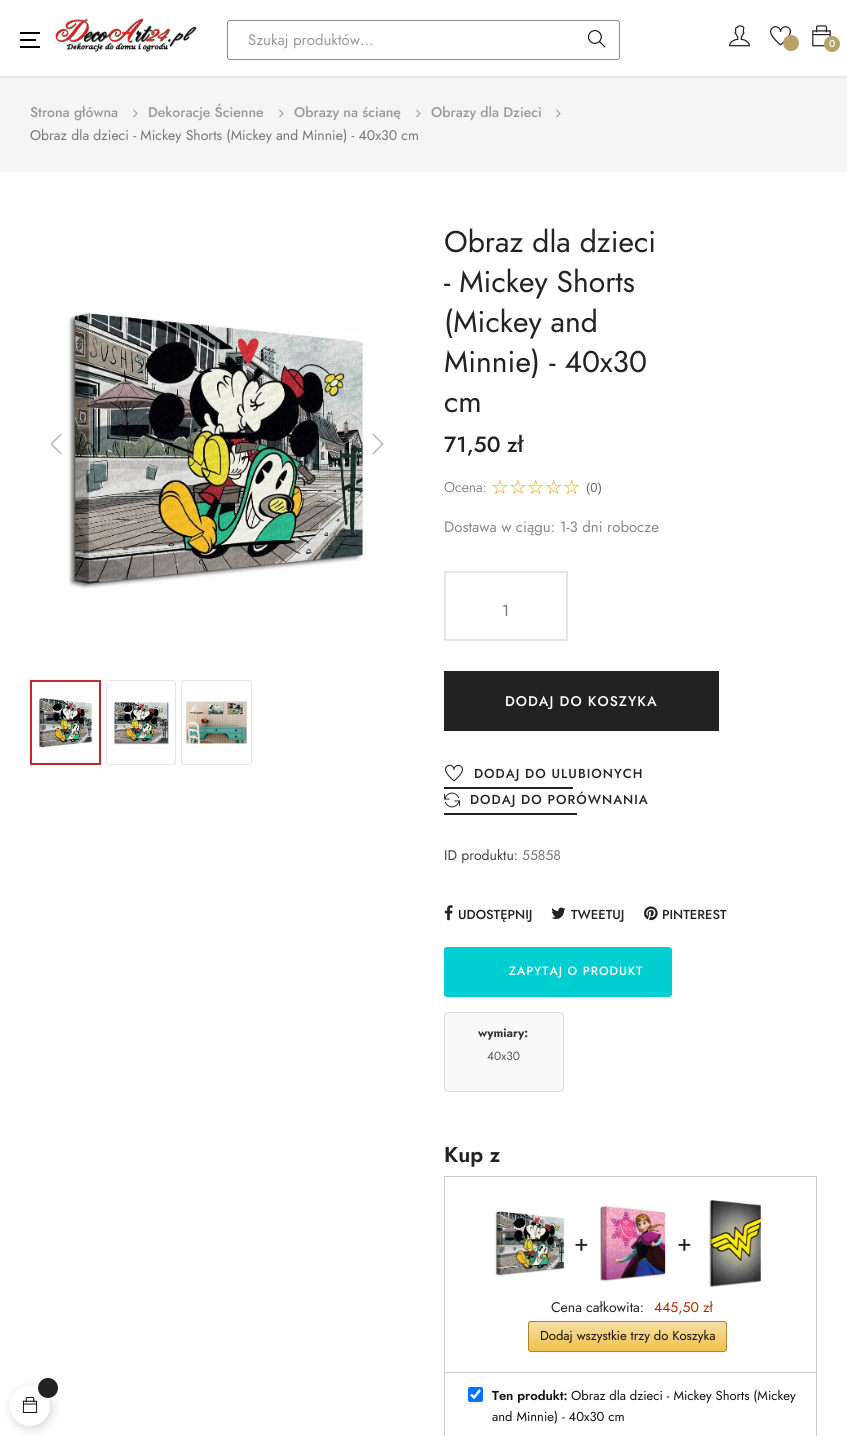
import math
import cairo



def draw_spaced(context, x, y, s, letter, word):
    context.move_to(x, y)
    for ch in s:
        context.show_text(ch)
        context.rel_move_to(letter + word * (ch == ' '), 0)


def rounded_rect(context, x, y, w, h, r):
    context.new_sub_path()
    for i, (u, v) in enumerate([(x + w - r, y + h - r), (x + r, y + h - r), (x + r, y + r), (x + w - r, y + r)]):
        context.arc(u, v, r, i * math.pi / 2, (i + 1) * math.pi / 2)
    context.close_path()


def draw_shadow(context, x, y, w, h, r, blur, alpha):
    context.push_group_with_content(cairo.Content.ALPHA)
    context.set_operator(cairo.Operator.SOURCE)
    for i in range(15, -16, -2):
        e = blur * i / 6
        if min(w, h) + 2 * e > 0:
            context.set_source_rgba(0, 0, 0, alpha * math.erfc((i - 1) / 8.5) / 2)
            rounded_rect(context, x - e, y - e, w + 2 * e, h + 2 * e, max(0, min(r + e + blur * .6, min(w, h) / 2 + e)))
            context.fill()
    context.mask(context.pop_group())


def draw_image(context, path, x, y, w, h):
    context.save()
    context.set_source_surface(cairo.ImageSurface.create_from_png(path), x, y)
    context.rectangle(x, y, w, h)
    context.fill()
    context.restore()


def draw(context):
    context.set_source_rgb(1, 1, 1)
    context.paint()
    context.set_source_rgb(245 / 255, 245 / 255, 245 / 255)
    context.rectangle(0, 76, 847, 96)
    context.fill()
    context.save()
    context.rectangle(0, 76, 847, 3)
    context.clip()
    context.set_source_rgb(0, 0, 0)
    draw_shadow(context, 0, 0, 847, 76, 0, 2.5, 0.15)
    context.restore()
    context.set_source_rgb(0, 0, 0)
    context.rectangle(20, 32, 20, 2)
    context.fill()
    context.rectangle(20, 46, 20, 2)
    context.fill()
    context.rectangle(20, 39, 16, 2)
    context.fill()
    draw_image(context, "images/1.png", 55, 18, 142, 34)
    rounded_rect(context, 227.5, 20.5, 392, 39, 2.5)
    context.set_source_rgb(143 / 255, 139 / 255, 139 / 255)
    context.set_line_width(1)
    context.stroke()
    draw_image(context, "images/2.png", 588, 30, 18, 18)
    draw_image(context, "images/3.png", 729, 25, 21, 22)
    draw_image(context, "images/4.png", 770, 26, 21, 20)
    context.set_source_rgb(185 / 255, 161 / 255, 107 / 255)
    context.arc(791, 43, 8, 0, 2 * math.pi)
    context.fill()
    draw_image(context, "images/5.png", 812, 25, 19, 22)
    context.arc(832, 44, 8, 0, 2 * math.pi)
    context.fill()
    draw_image(context, "images/6.png", 133, 109, 5, 9)
    draw_image(context, "images/6.png", 279, 109, 5, 9)
    draw_image(context, "images/6.png", 416, 109, 5, 9)
    draw_image(context, "images/6.png", 556, 109, 5, 9)
    draw_image(context, "images/7.png", 68, 312, 297, 277)
    draw_image(context, "images/8.png", 50, 433, 12, 22)
    draw_image(context, "images/9.png", 372, 433, 12, 22)
    context.rectangle(31, 681, 69, 83)
    context.set_source_rgb(195 / 255, 41 / 255, 41 / 255)
    context.set_line_width(2)
    context.stroke()
    draw_image(context, "images/10.png", 38, 698, 54, 50)
    rounded_rect(context, 106.5, 680.5, 69, 84, 2.5)
    context.set_source_rgb(230 / 255, 230 / 255, 230 / 255)
    context.set_line_width(1)
    context.stroke()
    draw_image(context, "images/11.png", 114, 702, 55, 43)
    rounded_rect(context, 181.5, 680.5, 70, 84, 2.5)
    context.stroke()
    draw_image(context, "images/12.png", 186, 701, 61, 43)
    context.rectangle(445, 572, 122, 68)
    context.set_source_rgb(229 / 255, 229 / 255, 229 / 255)
    context.set_line_width(2)
    context.stroke()
    context.set_source_rgb(34 / 255, 34 / 255, 34 / 255)
    context.rectangle(444, 671, 275, 60)
    context.fill()
    draw_image(context, "images/13.png", 445, 764, 18, 18)
    context.rectangle(444, 787, 129, 2)
    context.fill()
    draw_image(context, "images/14.png", 444, 792, 16, 16)
    context.rectangle(444, 813, 133, 2)
    context.fill()
    draw_image(context, "images/15.png", 444, 905, 9, 16)
    draw_image(context, "images/16.png", 551, 907, 15, 12)
    draw_image(context, "images/17.png", 644, 906, 14, 15)
    context.set_source_rgb(0, 206 / 255, 209 / 255)
    rounded_rect(context, 444, 947, 228, 50, 3)
    context.fill()
    context.set_source_rgb(249 / 255, 249 / 255, 249 / 255)
    rounded_rect(context, 444.5, 1012.5, 119, 79, 3.5)
    context.fill_preserve()
    context.set_source_rgb(221 / 255, 221 / 255, 221 / 255)
    context.set_line_width(1)
    context.stroke()
    context.rectangle(444.5, 1176.5, 372, 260)
    context.set_source_rgb(204 / 255, 204 / 255, 204 / 255)
    context.stroke()
    draw_image(context, "images/18.png", 495, 1211, 70, 65)
    draw_image(context, "images/19.png", 600, 1206, 66, 76)
    draw_image(context, "images/20.png", 709, 1200, 53, 88)
    context.save()
    rounded_rect(context, 528, 1321, 199, 31, 3)
    context.clip()
    gradient = cairo.LinearGradient(628, 1322, 628, 1351)
    gradient.add_color_stop_rgba(0, 247 / 255, 223 / 255, 165 / 255, 1)
    gradient.add_color_stop_rgba(1, 240 / 255, 193 / 255, 75 / 255, 1)
    context.set_source(gradient)
    context.rectangle(528, 1322, 199, 29)
    context.fill()
    context.restore()
    rounded_rect(context, 528.5, 1321.5, 198, 30, 2.5)
    context.set_source_rgb(168 / 255, 135 / 255, 52 / 255)
    context.stroke()
    context.set_source_rgb(204 / 255, 204 / 255, 204 / 255)
    context.rectangle(445, 1372, 371, 1)
    context.fill()
    context.set_source_rgb(0, 117 / 255, 1)
    rounded_rect(context, 468, 1387, 15, 15, 2)
    context.fill()
    context.new_path()
    context.move_to(471, 1394.5)
    context.line_to(474, 1397.5)
    context.line_to(480, 1390)
    context.set_source_rgb(1, 1, 1)
    context.set_line_width(2.4)
    context.stroke()
    context.set_source_rgb(0, 0, 0)
    draw_shadow(context, 12, 1389, 40, 40, 20, 5, 0.15)
    context.set_source_rgb(1, 1, 1)
    context.arc(30, 1406, 20, 0, 2 * math.pi)
    context.fill()
    draw_image(context, "images/21.png", 22, 1397, 16, 16)
    context.arc(48, 1388, 11, 0, 2 * math.pi)
    context.set_line_width(2)
    context.stroke()
    context.set_source_rgb(34 / 255, 34 / 255, 34 / 255)
    context.arc(48, 1388, 10, 0, 2 * math.pi)
    context.fill()
    context.select_font_face("Jost")
    context.set_font_size(15)
    context.set_source_rgb(153 / 255, 153 / 255, 153 / 255)
    context.move_to(248, 45)
    context.show_text("Szukaj produktów...")
    context.select_font_face("Jost Medium")
    context.set_font_size(10)
    context.set_source_rgb(1, 1, 1)
    context.move_to(829, 47)
    context.show_text("0")
    context.set_font_size(14)
    context.set_source_rgb(153 / 255, 153 / 255, 153 / 255)
    context.move_to(30, 117)
    context.show_text("Strona główna")
    context.move_to(148, 117)
    context.show_text("Dekoracje Ścienne")
    context.move_to(294, 117)
    context.show_text("Obrazy na ścianę")
    context.move_to(431, 117)
    context.show_text("Obrazy dla Dzieci")
    context.select_font_face("Jost")
    context.set_source_rgb(118 / 255, 118 / 255, 118 / 255)
    context.move_to(30, 140)
    context.show_text("Obraz dla dzieci - Mickey Shorts (Mickey and Minnie) - 40x30 cm")
    context.set_font_size(30)
    context.set_source_rgb(34 / 255, 34 / 255, 34 / 255)
    context.move_to(444, 252)
    context.show_text("Obraz dla dzieci")
    context.move_to(444, 292)
    context.show_text("- Mickey Shorts")
    context.move_to(444, 332)
    context.show_text("(Mickey and")
    context.move_to(444, 372)
    context.show_text("Minnie) - 40x30")
    context.move_to(444, 412)
    context.show_text("cm")
    context.select_font_face("Jost Medium")
    context.set_font_size(22)
    context.move_to(444, 452)
    context.show_text("71,50 zł")
    context.select_font_face("Jost Light")
    context.set_font_size(14)
    context.set_source_rgb(85 / 255, 85 / 255, 85 / 255)
    context.move_to(444, 492)
    context.show_text("Ocena:")
    context.select_font_face("DejaVu Sans")
    context.set_font_size(20)
    context.set_source_rgb(238 / 255, 154 / 255, 0)
    context.move_to(491, 494)
    context.show_text("☆☆☆☆☆")
    context.select_font_face("Liberation Sans")
    context.set_font_size(13)
    context.set_source_rgb(102 / 255, 102 / 255, 102 / 255)
    context.move_to(586, 492)
    context.show_text("(0)")
    context.select_font_face("Jost")
    context.set_font_size(15)
    context.set_source_rgb(135 / 255, 135 / 255, 135 / 255)
    context.move_to(444, 532)
    context.show_text("Dostawa w ciągu: 1-3 dni robocze")
    context.set_font_size(16)
    context.set_source_rgb(118 / 255, 118 / 255, 118 / 255)
    context.move_to(502, 616)
    context.show_text("1")
    context.select_font_face("Jost Medium")
    context.set_font_size(14)
    context.set_source_rgb(1, 1, 1)
    draw_spaced(context, 505, 706, "DODAJ DO KOSZYKA", 1, 0)
    context.set_font_size(13)
    context.set_source_rgb(34 / 255, 34 / 255, 34 / 255)
    draw_spaced(context, 474, 778, "DODAJ DO ULUBIONYCH", 1, 0)
    draw_spaced(context, 470, 804, "DODAJ DO PORÓWNANIA", 1, 0)
    context.select_font_face("Jost")
    context.set_font_size(14)
    context.set_source_rgb(65 / 255, 65 / 255, 65 / 255)
    context.move_to(444, 860)
    context.show_text("ID produktu:")
    context.set_source_rgb(118 / 255, 118 / 255, 118 / 255)
    context.move_to(522, 860)
    context.show_text("55858")
    context.select_font_face("Jost Medium")
    context.set_font_size(13)
    context.set_source_rgb(34 / 255, 34 / 255, 34 / 255)
    context.move_to(458, 919)
    context.show_text("UDOSTĘPNIJ")
    context.move_to(571, 919)
    context.show_text("TWEETUJ")
    context.move_to(662, 919)
    context.show_text("PINTEREST")
    context.set_font_size(12)
    context.set_source_rgb(1, 1, 1)
    draw_spaced(context, 509, 975, "ZAPYTAJ O PRODUKT", 1, 0)
    context.select_font_face("Jost", cairo.FontSlant.NORMAL, cairo.FontWeight.BOLD)
    context.set_source_rgb(51 / 255, 51 / 255, 51 / 255)
    context.move_to(478, 1037)
    context.show_text("wymiary:")
    context.select_font_face("Jost")
    context.set_source_rgb(85 / 255, 85 / 255, 85 / 255)
    context.move_to(487, 1060)
    context.show_text("40x30")
    context.select_font_face("Jost SemiBold")
    context.set_font_size(21.5)
    context.set_source_rgb(34 / 255, 34 / 255, 34 / 255)
    context.move_to(444, 1162)
    context.show_text("Kup z")
    context.select_font_face("Jost")
    context.set_font_size(24)
    context.move_to(574, 1251)
    context.show_text("+")
    context.move_to(677, 1251)
    context.show_text("+")
    context.set_font_size(14)
    context.move_to(551, 1312)
    context.show_text("Cena całkowita:")
    context.set_source_rgb(177 / 255, 39 / 255, 4 / 255)
    context.move_to(654, 1312)
    context.show_text("445,50 zł")
    context.set_font_size(13)
    context.set_source_rgb(17 / 255, 17 / 255, 17 / 255)
    context.move_to(540, 1340)
    context.show_text("Dodaj wszystkie trzy do Koszyka")
    context.select_font_face("Jost SemiBold")
    context.move_to(492, 1400)
    context.show_text("Ten produkt:")
    context.select_font_face("Jost")
    context.move_to(571, 1400)
    context.show_text("Obraz dla dzieci - Mickey Shorts (Mickey")
    context.move_to(492, 1421)
    context.show_text("and Minnie) - 40x30 cm")


surface = cairo.ImageSurface(cairo.Format.RGB24, 847, 1436)
context = cairo.Context(surface)
options = cairo.FontOptions()
options.set_hint_metrics(cairo.HintMetrics.OFF)
options.set_hint_style(cairo.HintStyle.NONE)
context.set_font_options(options)
context.set_miter_limit(4)
draw(context)
surface.write_to_png("out.png")
